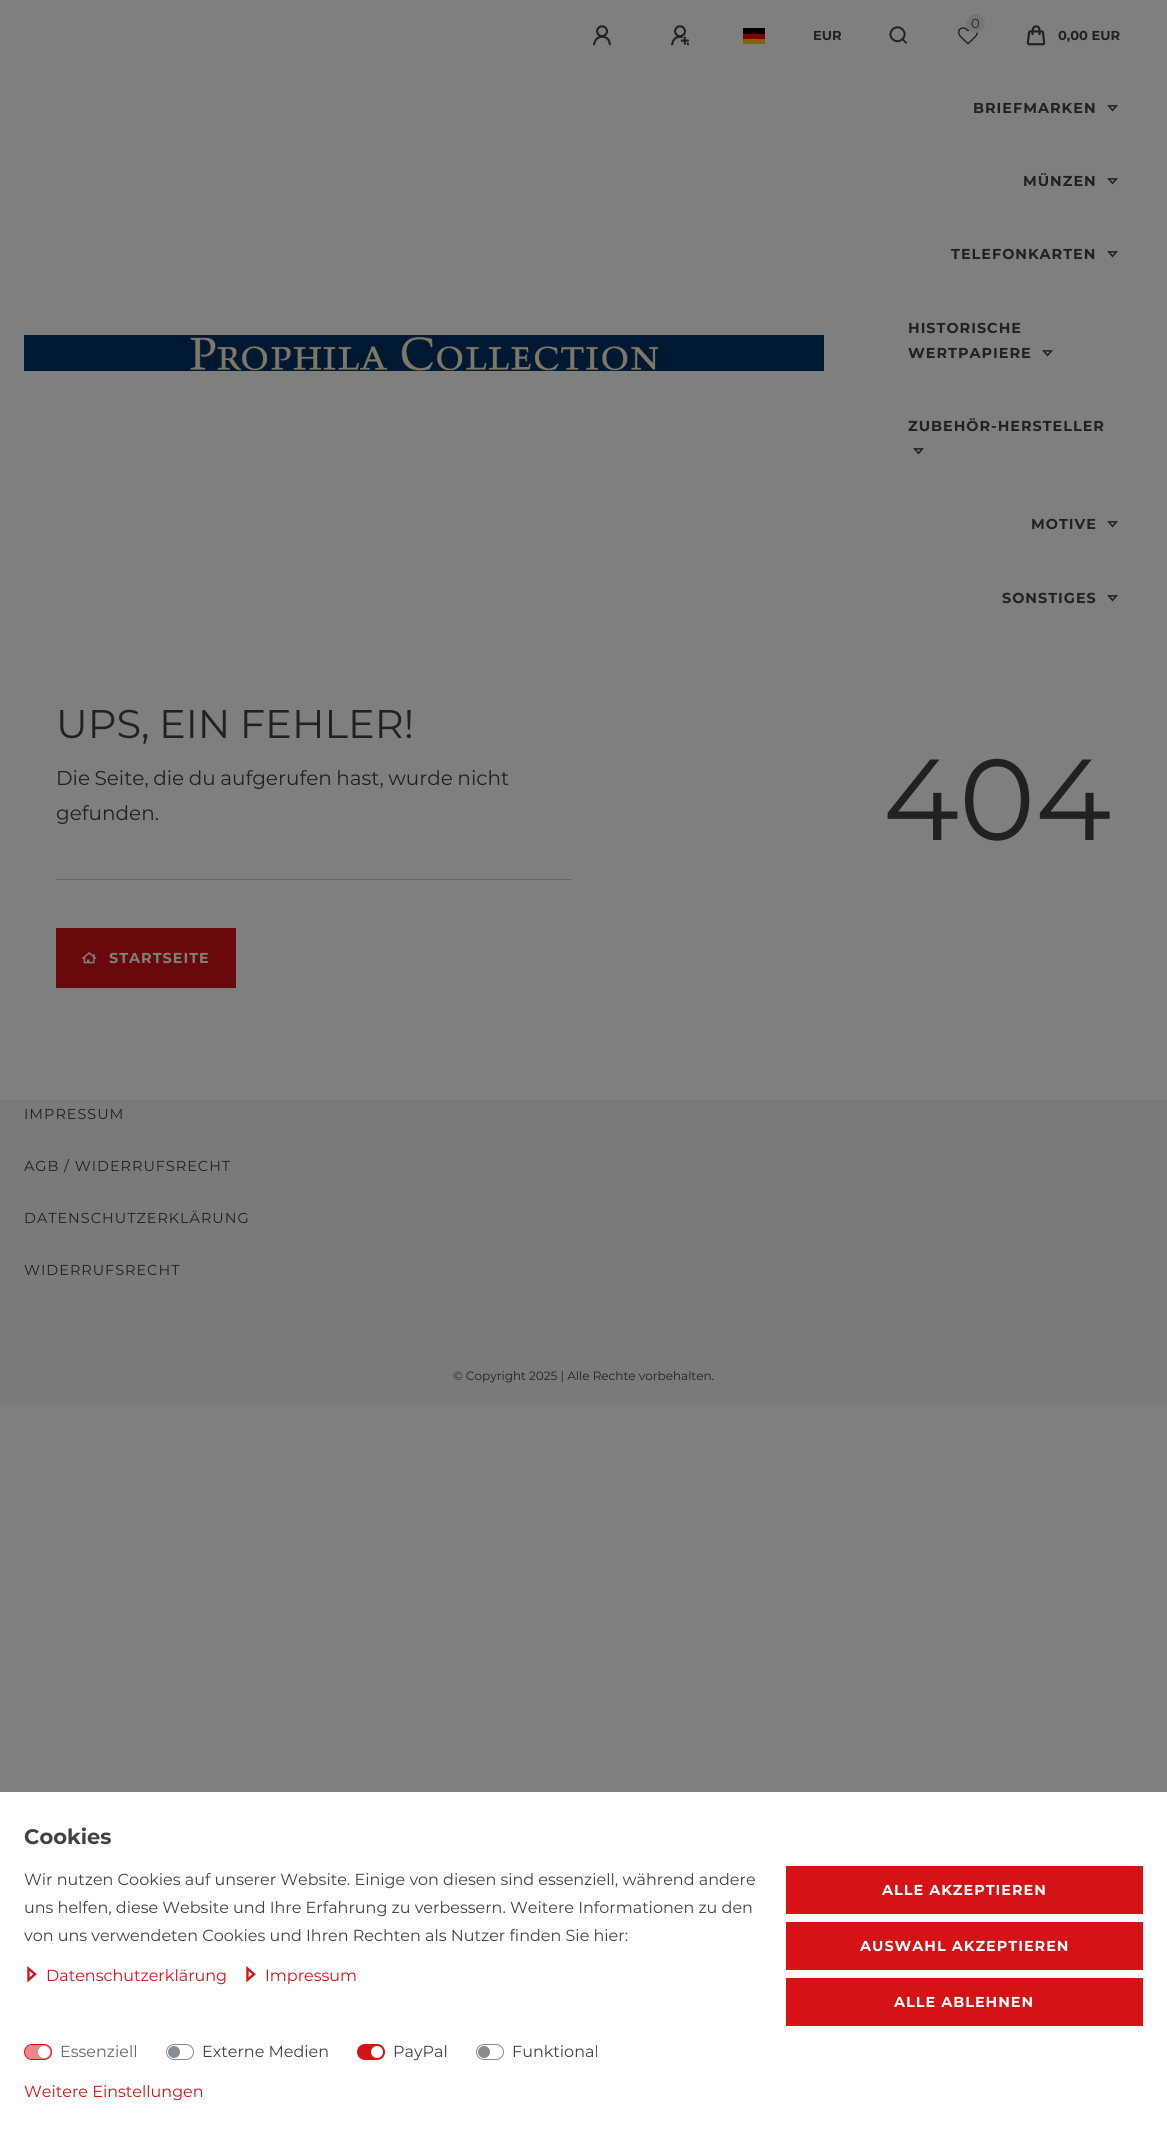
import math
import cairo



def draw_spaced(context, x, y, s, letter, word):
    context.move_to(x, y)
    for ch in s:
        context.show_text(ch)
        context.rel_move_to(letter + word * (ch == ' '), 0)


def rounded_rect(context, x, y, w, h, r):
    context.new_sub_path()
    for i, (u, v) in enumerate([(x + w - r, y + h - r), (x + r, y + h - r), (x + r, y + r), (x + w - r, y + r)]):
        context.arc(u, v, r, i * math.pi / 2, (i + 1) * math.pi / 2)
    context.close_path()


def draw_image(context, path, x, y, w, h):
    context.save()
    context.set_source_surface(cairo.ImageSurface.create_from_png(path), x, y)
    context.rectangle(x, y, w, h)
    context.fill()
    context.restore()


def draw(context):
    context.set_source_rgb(1, 1, 1)
    context.paint()
    draw_image(context, "images/1.png", 958, 27, 20, 18)
    context.set_source_rgb(233 / 255, 236 / 255, 239 / 255)
    context.arc(975.5, 23.5, 9.5, 0, 2 * math.pi)
    context.fill()
    draw_image(context, "images/2.png", 593, 25, 18, 21)
    draw_image(context, "images/3.png", 671, 25, 18, 21)
    context.set_source_rgb(1, 204 / 255, 0)
    context.rectangle(743, 39, 22, 5)
    context.fill()
    context.set_source_rgb(0, 0, 0)
    context.rectangle(743, 28, 22, 6)
    context.fill()
    context.set_source_rgb(1, 0, 0)
    context.rectangle(743, 34, 22, 5)
    context.fill()
    context.set_source_rgb(62 / 255, 67 / 255, 70 / 255)
    context.new_path()
    context.move_to(905.5, 43.5)
    context.line_to(903, 41)
    context.curve_to(902.5, 40.5, 900.5, 39, 902, 38.5)
    context.line_to(903, 38.5)
    context.line_to(907, 42.5)
    context.curve_to(907.5, 43.5, 906, 44, 905.5, 43.5)
    context.close_path()
    context.fill()
    context.new_path()
    context.move_to(892.5, 39)
    context.curve_to(886, 32.5, 896, 23, 902.5, 29.5)
    context.curve_to(909, 36, 899, 45.5, 892.5, 39)
    context.close_path()
    context.stroke()
    draw_image(context, "images/4.png", 1026, 25, 20, 21)
    draw_image(context, "images/5.png", 24, 335, 800, 36)
    draw_image(context, "images/6.png", 1107, 105, 11, 7)
    draw_image(context, "images/6.png", 1107, 178, 11, 7)
    draw_image(context, "images/6.png", 1107, 251, 11, 7)
    draw_image(context, "images/6.png", 1042, 350, 11, 7)
    draw_image(context, "images/6.png", 913, 448, 11, 7)
    draw_image(context, "images/6.png", 1107, 521, 11, 7)
    draw_image(context, "images/6.png", 1107, 595, 11, 7)
    context.set_source_rgb(201 / 255, 205 / 255, 208 / 255)
    context.rectangle(56, 879, 516, 1)
    context.fill()
    context.set_source_rgb(213 / 255, 19 / 255, 23 / 255)
    context.rectangle(56, 928, 180, 60)
    context.fill()
    draw_image(context, "images/7.png", 82, 952, 15, 12)
    context.set_source_rgb(244 / 255, 244 / 255, 246 / 255)
    context.rectangle(0, 1100, 1167, 305)
    context.fill()
    context.select_font_face("Montserrat")
    context.set_font_size(13)
    context.set_source_rgb(62 / 255, 67 / 255, 70 / 255)
    context.move_to(971, 28)
    context.show_text("0")
    context.select_font_face("Montserrat", cairo.FontSlant.NORMAL, cairo.FontWeight.BOLD)
    context.move_to(813, 40)
    context.show_text("EUR")
    context.move_to(1058, 40)
    context.show_text("0,00 EUR")
    context.set_font_size(14.4)
    draw_spaced(context, 973, 113, "BRIEFMARKEN", 1, 0)
    draw_spaced(context, 1023, 186, "MÜNZEN", 1, 0)
    draw_spaced(context, 951, 259, "TELEFONKARTEN", 1, 0)
    draw_spaced(context, 908, 333, "HISTORISCHE", 1, 0)
    draw_spaced(context, 908, 358, "WERTPAPIERE", 1, 0)
    draw_spaced(context, 908, 431, "ZUBEHÖR-HERSTELLER", 1, 0)
    draw_spaced(context, 1031, 529, "MOTIVE", 1, 0)
    draw_spaced(context, 1002, 603, "SONSTIGES", 1, 0)
    context.select_font_face("Montserrat")
    context.set_font_size(40)
    draw_spaced(context, 56, 738, "UPS, EIN FEHLER!", 0, -1)
    context.set_font_size(20)
    draw_spaced(context, 56, 785, "Die Seite, die du aufgerufen hast, wurde nicht", 0, -0.75)
    context.move_to(56, 820)
    context.show_text("gefunden.")
    context.select_font_face("Montserrat", cairo.FontSlant.NORMAL, cairo.FontWeight.BOLD)
    context.set_font_size(14.4)
    context.set_source_rgb(1, 1, 1)
    draw_spaced(context, 109, 963, "STARTSEITE", 1, 0)
    context.select_font_face("Montserrat")
    context.set_font_size(115)
    context.set_source_rgb(62 / 255, 67 / 255, 70 / 255)
    context.move_to(883, 840)
    context.show_text("404")
    context.set_font_size(14.4)
    draw_spaced(context, 24, 1119, "IMPRESSUM", 1, 0)
    draw_spaced(context, 24, 1171, "AGB / WIDERRUFSRECHT", 1, 0)
    draw_spaced(context, 24, 1223, "DATENSCHUTZERKLÄRUNG", 1, 0)
    draw_spaced(context, 24, 1275, "WIDERRUFSRECHT", 1, 0)
    context.set_font_size(12)
    context.move_to(453, 1380)
    context.show_text("© Copyright 2025 | Alle Rechte vorbehalten.")
    context.rectangle(-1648.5, 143.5, 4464, 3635)
    context.set_source_rgba(0, 0, 0, 0.5)
    context.set_line_width(3297)
    context.stroke()
    context.select_font_face("Montserrat", cairo.FontSlant.NORMAL, cairo.FontWeight.BOLD)
    context.set_font_size(21)
    context.set_source_rgb(62 / 255, 67 / 255, 70 / 255)
    context.move_to(24, 1844)
    context.show_text("Cookies")
    context.select_font_face("Montserrat")
    context.set_font_size(16)
    context.move_to(24, 1885)
    context.show_text("Wir nutzen Cookies auf unserer Website. Einige von diesen sind essenziell, während andere")
    context.move_to(24, 1913)
    context.show_text("uns helfen, diese Website und Ihre Erfahrung zu verbessern. Weitere Informationen zu den")
    context.move_to(24, 1941)
    context.show_text("von uns verwendeten Cookies und Ihren Rechten als Nutzer finden Sie hier:")
    draw_image(context, "images/8.png", 27, 1966, 10, 17)
    context.set_source_rgb(213 / 255, 19 / 255, 23 / 255)
    context.move_to(46, 1981)
    context.show_text("Datenschutzerklärung")
    draw_image(context, "images/8.png", 246, 1966, 10, 17)
    context.move_to(265, 1981)
    context.show_text("Impressum")
    context.set_source_rgb(234 / 255, 137 / 255, 139 / 255)
    rounded_rect(context, 24.5, 2044.5, 27, 15, 7.5)
    context.fill_preserve()
    context.set_source_rgb(213 / 255, 19 / 255, 23 / 255)
    context.set_line_width(1)
    context.stroke()
    context.set_source_rgb(97 / 255, 105 / 255, 106 / 255)
    context.move_to(60, 2057)
    context.show_text("Essenziell")
    context.set_source_rgb(1, 1, 1)
    context.new_path()
    context.arc(44, 2052, 6, 0, 2 * math.pi)
    context.fill()
    rounded_rect(context, 166.5, 2044.5, 27, 15, 7.5)
    context.set_source_rgb(135 / 255, 140 / 255, 144 / 255)
    context.stroke()
    context.set_source_rgb(62 / 255, 67 / 255, 70 / 255)
    context.move_to(202, 2057)
    context.show_text("Externe Medien")
    context.set_source_rgb(135 / 255, 140 / 255, 144 / 255)
    context.new_path()
    context.arc(174, 2052, 6, 0, 2 * math.pi)
    context.fill()
    context.set_source_rgb(213 / 255, 19 / 255, 23 / 255)
    rounded_rect(context, 357.5, 2044.5, 27, 15, 7.5)
    context.fill_preserve()
    context.stroke()
    context.set_source_rgb(62 / 255, 67 / 255, 70 / 255)
    context.move_to(393, 2057)
    context.show_text("PayPal")
    context.set_source_rgb(1, 1, 1)
    context.new_path()
    context.arc(377, 2052, 6, 0, 2 * math.pi)
    context.fill()
    rounded_rect(context, 476.5, 2044.5, 27, 15, 7.5)
    context.set_source_rgb(135 / 255, 140 / 255, 144 / 255)
    context.stroke()
    context.set_source_rgb(62 / 255, 67 / 255, 70 / 255)
    context.move_to(512, 2057)
    context.show_text("Funktional")
    context.set_source_rgb(135 / 255, 140 / 255, 144 / 255)
    context.new_path()
    context.arc(484, 2052, 6, 0, 2 * math.pi)
    context.fill()
    context.set_source_rgb(213 / 255, 19 / 255, 23 / 255)
    context.move_to(24, 2097)
    context.show_text("Weitere Einstellungen")
    context.rectangle(786, 1866, 357, 48)
    context.fill()
    context.select_font_face("Montserrat", cairo.FontSlant.NORMAL, cairo.FontWeight.BOLD)
    context.set_font_size(14.4)
    context.set_source_rgb(1, 1, 1)
    draw_spaced(context, 882, 1895, "ALLE AKZEPTIEREN", 1, 0)
    context.set_source_rgb(213 / 255, 19 / 255, 23 / 255)
    context.rectangle(786, 1922, 357, 48)
    context.fill()
    context.set_source_rgb(1, 1, 1)
    draw_spaced(context, 860, 1951, "AUSWAHL AKZEPTIEREN", 1, 0)
    context.set_source_rgb(213 / 255, 19 / 255, 23 / 255)
    context.rectangle(786, 1978, 357, 48)
    context.fill()
    context.set_source_rgb(1, 1, 1)
    draw_spaced(context, 894, 2007, "ALLE ABLEHNEN", 1, 0)


surface = cairo.ImageSurface(cairo.Format.RGB24, 1167, 2130)
context = cairo.Context(surface)
options = cairo.FontOptions()
options.set_hint_metrics(cairo.HintMetrics.OFF)
options.set_hint_style(cairo.HintStyle.NONE)
context.set_font_options(options)
context.set_miter_limit(4)
draw(context)
surface.write_to_png("out.png")
